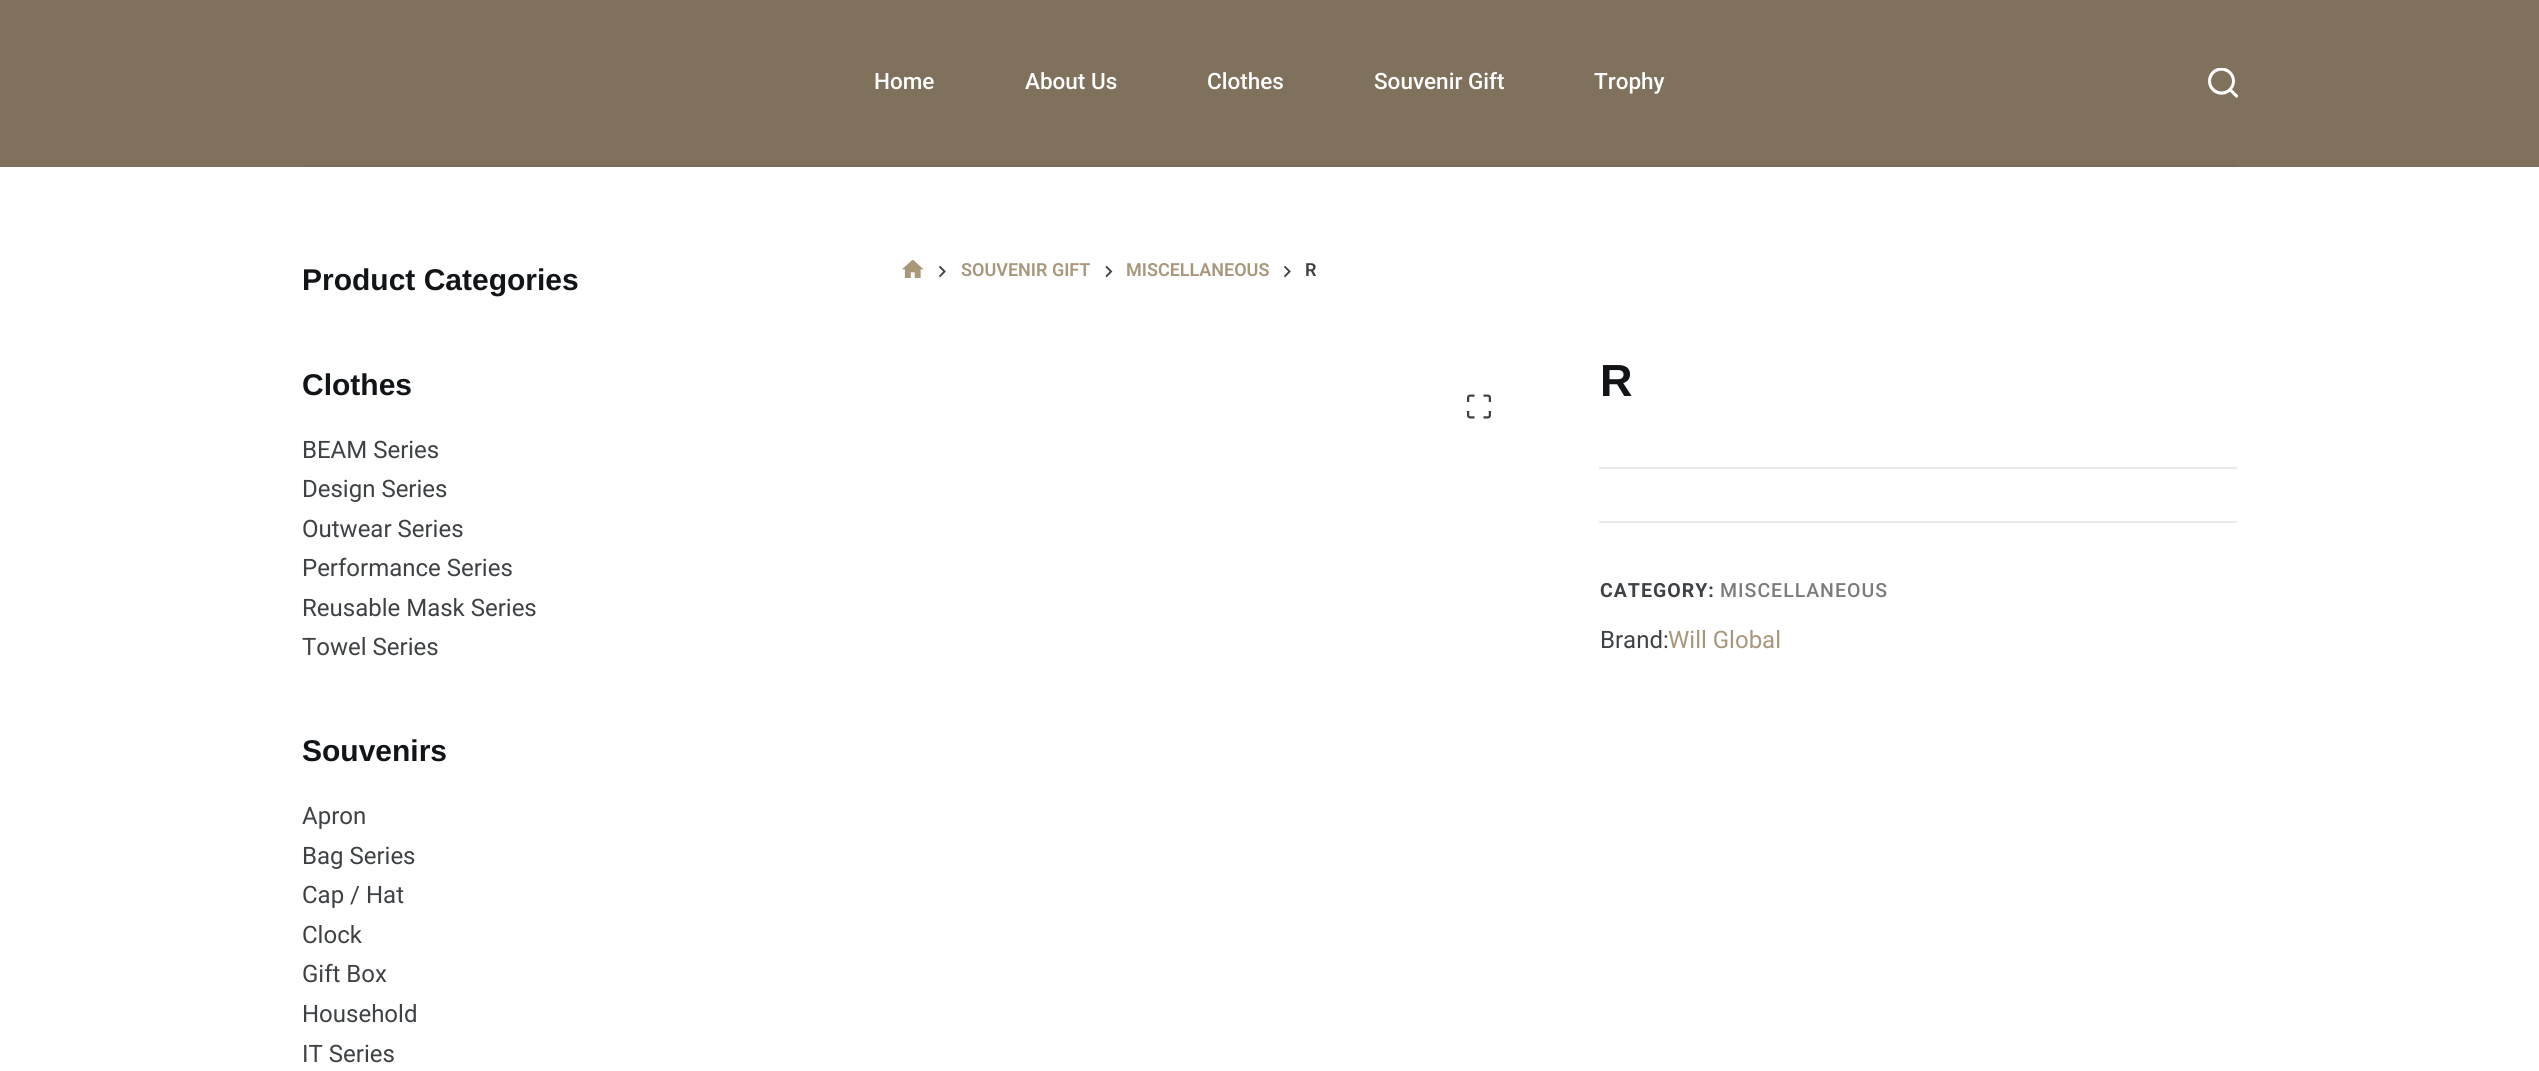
import math
import cairo



def draw_spaced(context, x, y, s, letter, word):
    context.move_to(x, y)
    for ch in s:
        context.show_text(ch)
        context.rel_move_to(letter + word * (ch == ' '), 0)


def draw_image(context, path, x, y, w, h):
    context.save()
    context.set_source_surface(cairo.ImageSurface.create_from_png(path), x, y)
    context.rectangle(x, y, w, h)
    context.fill()
    context.restore()


def draw(context):
    context.set_source_rgb(1, 1, 1)
    context.paint()
    context.set_source_rgb(127 / 255, 113 / 255, 92 / 255)
    context.rectangle(0, 0, 2539, 167)
    context.fill()
    context.set_source_rgb(121 / 255, 107 / 255, 87 / 255)
    context.rectangle(303, 165, 1935, 2)
    context.fill()
    draw_image(context, "images/1.png", 2208, 68, 30, 30)
    draw_image(context, "images/2.png", 902, 260, 22, 18)
    draw_image(context, "images/3.png", 939, 266, 7, 12)
    draw_image(context, "images/4.png", 1105, 266, 8, 12)
    draw_image(context, "images/3.png", 1284, 266, 7, 12)
    draw_image(context, "images/5.png", 1467, 394, 24, 25)
    context.set_source_rgb(234 / 255, 234 / 255, 236 / 255)
    context.rectangle(1599, 467, 638, 2)
    context.fill()
    context.rectangle(1599, 521, 638, 2)
    context.fill()
    context.select_font_face("Roboto Medium")
    context.set_font_size(22.5)
    context.set_source_rgb(1, 1, 1)
    context.move_to(874, 89)
    context.show_text("Home")
    context.move_to(1025, 89)
    context.show_text("About Us")
    context.move_to(1207, 89)
    context.show_text("Clothes")
    context.move_to(1374, 89)
    context.show_text("Souvenir Gift")
    context.move_to(1594, 89)
    context.show_text("Trophy")
    context.select_font_face("Liberation Sans", cairo.FontSlant.NORMAL, cairo.FontWeight.BOLD)
    context.set_font_size(30)
    context.set_source_rgb(17 / 255, 21 / 255, 24 / 255)
    context.move_to(302, 290)
    context.show_text("Product Categories")
    context.move_to(302, 395)
    context.show_text("Clothes")
    context.select_font_face("Roboto")
    context.set_font_size(24)
    context.set_source_rgb(63 / 255, 66 / 255, 69 / 255)
    context.move_to(302, 458)
    context.show_text("BEAM Series")
    context.move_to(302, 497)
    context.show_text("Design Series")
    context.move_to(302, 537)
    context.show_text("Outwear Series")
    context.move_to(302, 576)
    context.show_text("Performance Series")
    context.move_to(302, 616)
    context.show_text("Reusable Mask Series")
    context.move_to(302, 655)
    context.show_text("Towel Series")
    context.select_font_face("Liberation Sans", cairo.FontSlant.NORMAL, cairo.FontWeight.BOLD)
    context.set_font_size(30)
    context.set_source_rgb(17 / 255, 21 / 255, 24 / 255)
    context.move_to(302, 761)
    context.show_text("Souvenirs")
    context.select_font_face("Roboto")
    context.set_font_size(24)
    context.set_source_rgb(63 / 255, 66 / 255, 69 / 255)
    context.move_to(302, 824)
    context.show_text("Apron")
    context.move_to(302, 864)
    context.show_text("Bag Series")
    context.move_to(302, 903)
    context.show_text("Cap / Hat")
    context.move_to(302, 943)
    context.show_text("Clock")
    context.move_to(302, 982)
    context.show_text("Gift Box")
    context.move_to(302, 1022)
    context.show_text("Household")
    context.move_to(302, 1062)
    context.show_text("IT Series")
    context.select_font_face("Roboto SemiBold")
    context.set_font_size(18)
    context.set_source_rgb(168 / 255, 151 / 255, 123 / 255)
    context.move_to(961, 276)
    context.show_text("SOUVENIR GIFT")
    context.move_to(1126, 276)
    context.show_text("MISCELLANEOUS")
    context.set_source_rgb(63 / 255, 66 / 255, 69 / 255)
    context.move_to(1305, 276)
    context.show_text("R")
    context.select_font_face("Liberation Sans", cairo.FontSlant.NORMAL, cairo.FontWeight.BOLD)
    context.set_font_size(45)
    context.set_source_rgb(17 / 255, 21 / 255, 24 / 255)
    context.move_to(1600, 396)
    context.show_text("R")
    context.select_font_face("Roboto", cairo.FontSlant.NORMAL, cairo.FontWeight.BOLD)
    context.set_font_size(19.5)
    context.set_source_rgb(63 / 255, 66 / 255, 69 / 255)
    draw_spaced(context, 1600, 597, "CATEGORY:", 1, 0)
    context.select_font_face("Roboto Medium")
    context.set_source_rgb(121 / 255, 123 / 255, 125 / 255)
    draw_spaced(context, 1720, 597, "MISCELLANEOUS", 1, 0)
    context.select_font_face("Roboto")
    context.set_font_size(24)
    context.set_source_rgb(63 / 255, 66 / 255, 69 / 255)
    context.move_to(1600, 648)
    context.show_text("Brand:")
    context.set_source_rgb(168 / 255, 151 / 255, 123 / 255)
    context.move_to(1668, 648)
    context.show_text("Will Global")


surface = cairo.ImageSurface(cairo.Format.RGB24, 2539, 1071)
context = cairo.Context(surface)
options = cairo.FontOptions()
options.set_hint_metrics(cairo.HintMetrics.OFF)
options.set_hint_style(cairo.HintStyle.NONE)
context.set_font_options(options)
context.set_miter_limit(4)
draw(context)
surface.write_to_png("out.png")
